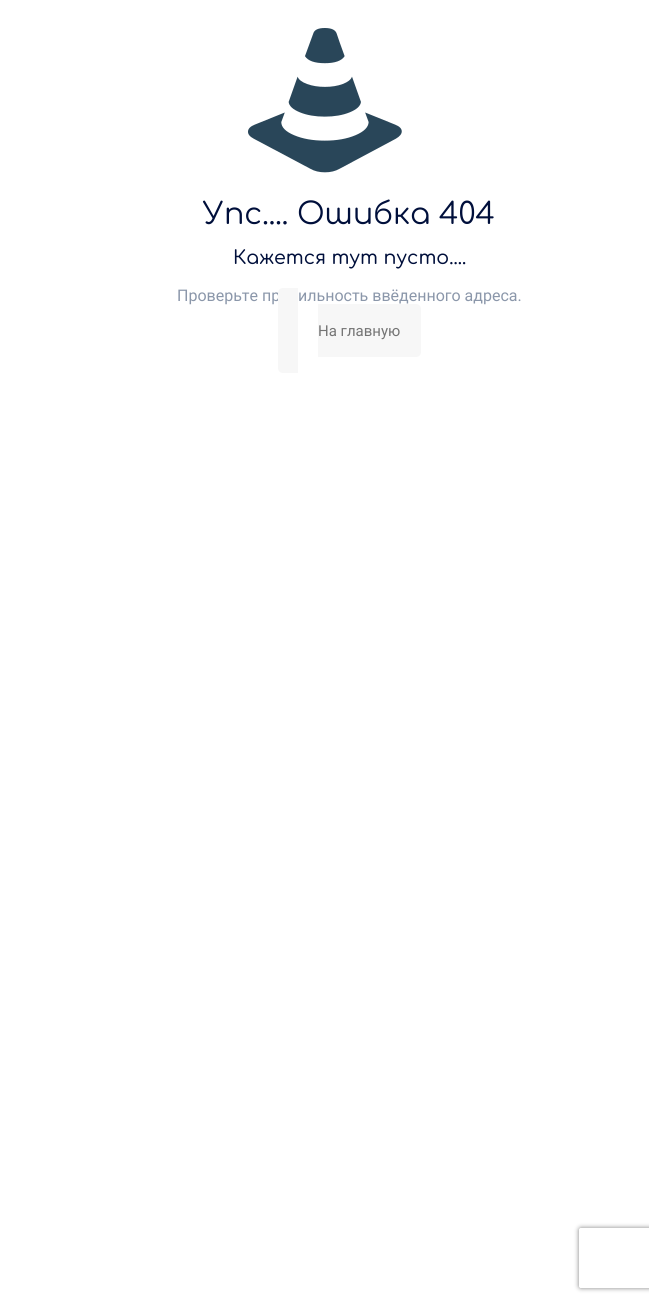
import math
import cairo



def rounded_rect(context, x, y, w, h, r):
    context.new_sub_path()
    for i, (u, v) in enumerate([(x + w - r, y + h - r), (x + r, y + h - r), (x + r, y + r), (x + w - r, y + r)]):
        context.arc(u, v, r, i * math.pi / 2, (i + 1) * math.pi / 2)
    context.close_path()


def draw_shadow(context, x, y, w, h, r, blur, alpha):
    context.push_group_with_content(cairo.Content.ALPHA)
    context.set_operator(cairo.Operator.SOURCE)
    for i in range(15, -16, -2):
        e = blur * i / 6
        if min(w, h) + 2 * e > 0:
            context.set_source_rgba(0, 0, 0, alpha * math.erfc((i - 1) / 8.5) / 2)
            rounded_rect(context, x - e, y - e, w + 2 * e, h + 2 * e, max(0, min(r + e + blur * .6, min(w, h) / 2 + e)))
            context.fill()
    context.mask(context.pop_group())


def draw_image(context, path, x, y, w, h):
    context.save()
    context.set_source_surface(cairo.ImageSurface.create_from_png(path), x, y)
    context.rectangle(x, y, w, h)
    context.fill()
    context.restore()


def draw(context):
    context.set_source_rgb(1, 1, 1)
    context.paint()
    draw_image(context, "images/1.png", 248, 28, 154, 145)
    context.save()
    context.set_fill_rule(cairo.FillRule.EVEN_ODD)
    context.new_path()
    context.move_to(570, 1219)
    context.line_to(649, 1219)
    context.line_to(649, 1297)
    context.line_to(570, 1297)
    context.close_path()
    context.move_to(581, 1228)
    context.line_to(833, 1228)
    context.curve_to(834, 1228, 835, 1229, 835, 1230)
    context.line_to(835, 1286)
    context.curve_to(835, 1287, 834, 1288, 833, 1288)
    context.line_to(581, 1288)
    context.curve_to(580, 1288, 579, 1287, 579, 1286)
    context.line_to(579, 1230)
    context.curve_to(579, 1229, 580, 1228, 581, 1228)
    context.close_path()
    context.clip()
    context.set_source_rgb(128 / 255, 128 / 255, 128 / 255)
    draw_shadow(context, 579, 1228, 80, 60, 2, 2.5, 1)
    context.restore()
    context.select_font_face("Comfortaa")
    context.set_font_size(30)
    context.set_source_rgb(0, 15 / 255, 59 / 255)
    context.move_to(203, 224)
    context.show_text("Упс.... Ошибка 404")
    context.select_font_face("Comfortaa Medium")
    context.set_font_size(19)
    context.move_to(233, 264)
    context.show_text("Кажется тут пусто....")
    context.select_font_face("Roboto")
    context.set_font_size(16)
    context.set_source_rgb(139 / 255, 151 / 255, 170 / 255)
    context.move_to(177, 301)
    context.show_text("Проверьте пр")
    context.move_to(298, 301)
    context.show_text("ильность ввёденного адреса.")
    context.set_source_rgb(247 / 255, 247 / 255, 247 / 255)
    context.new_path()
    context.move_to(283, 288)
    context.line_to(298, 288)
    context.line_to(298, 373)
    context.line_to(283, 373)
    context.curve_to(280, 373, 278, 371, 278, 368)
    context.line_to(278, 293)
    context.curve_to(278, 290, 280, 288, 283, 288)
    context.close_path()
    context.fill()
    context.new_path()
    context.move_to(318, 304)
    context.line_to(416, 304)
    context.curve_to(419, 304, 421, 306, 421, 309)
    context.line_to(421, 352)
    context.curve_to(421, 355, 419, 357, 416, 357)
    context.line_to(318, 357)
    context.close_path()
    context.fill()
    context.set_font_size(15)
    context.set_source_rgb(116 / 255, 116 / 255, 116 / 255)
    context.move_to(318, 336)
    context.show_text("На главную")


surface = cairo.ImageSurface(cairo.Format.RGB24, 649, 1302)
context = cairo.Context(surface)
options = cairo.FontOptions()
options.set_hint_metrics(cairo.HintMetrics.OFF)
options.set_hint_style(cairo.HintStyle.NONE)
context.set_font_options(options)
context.set_miter_limit(4)
draw(context)
surface.write_to_png("out.png")
